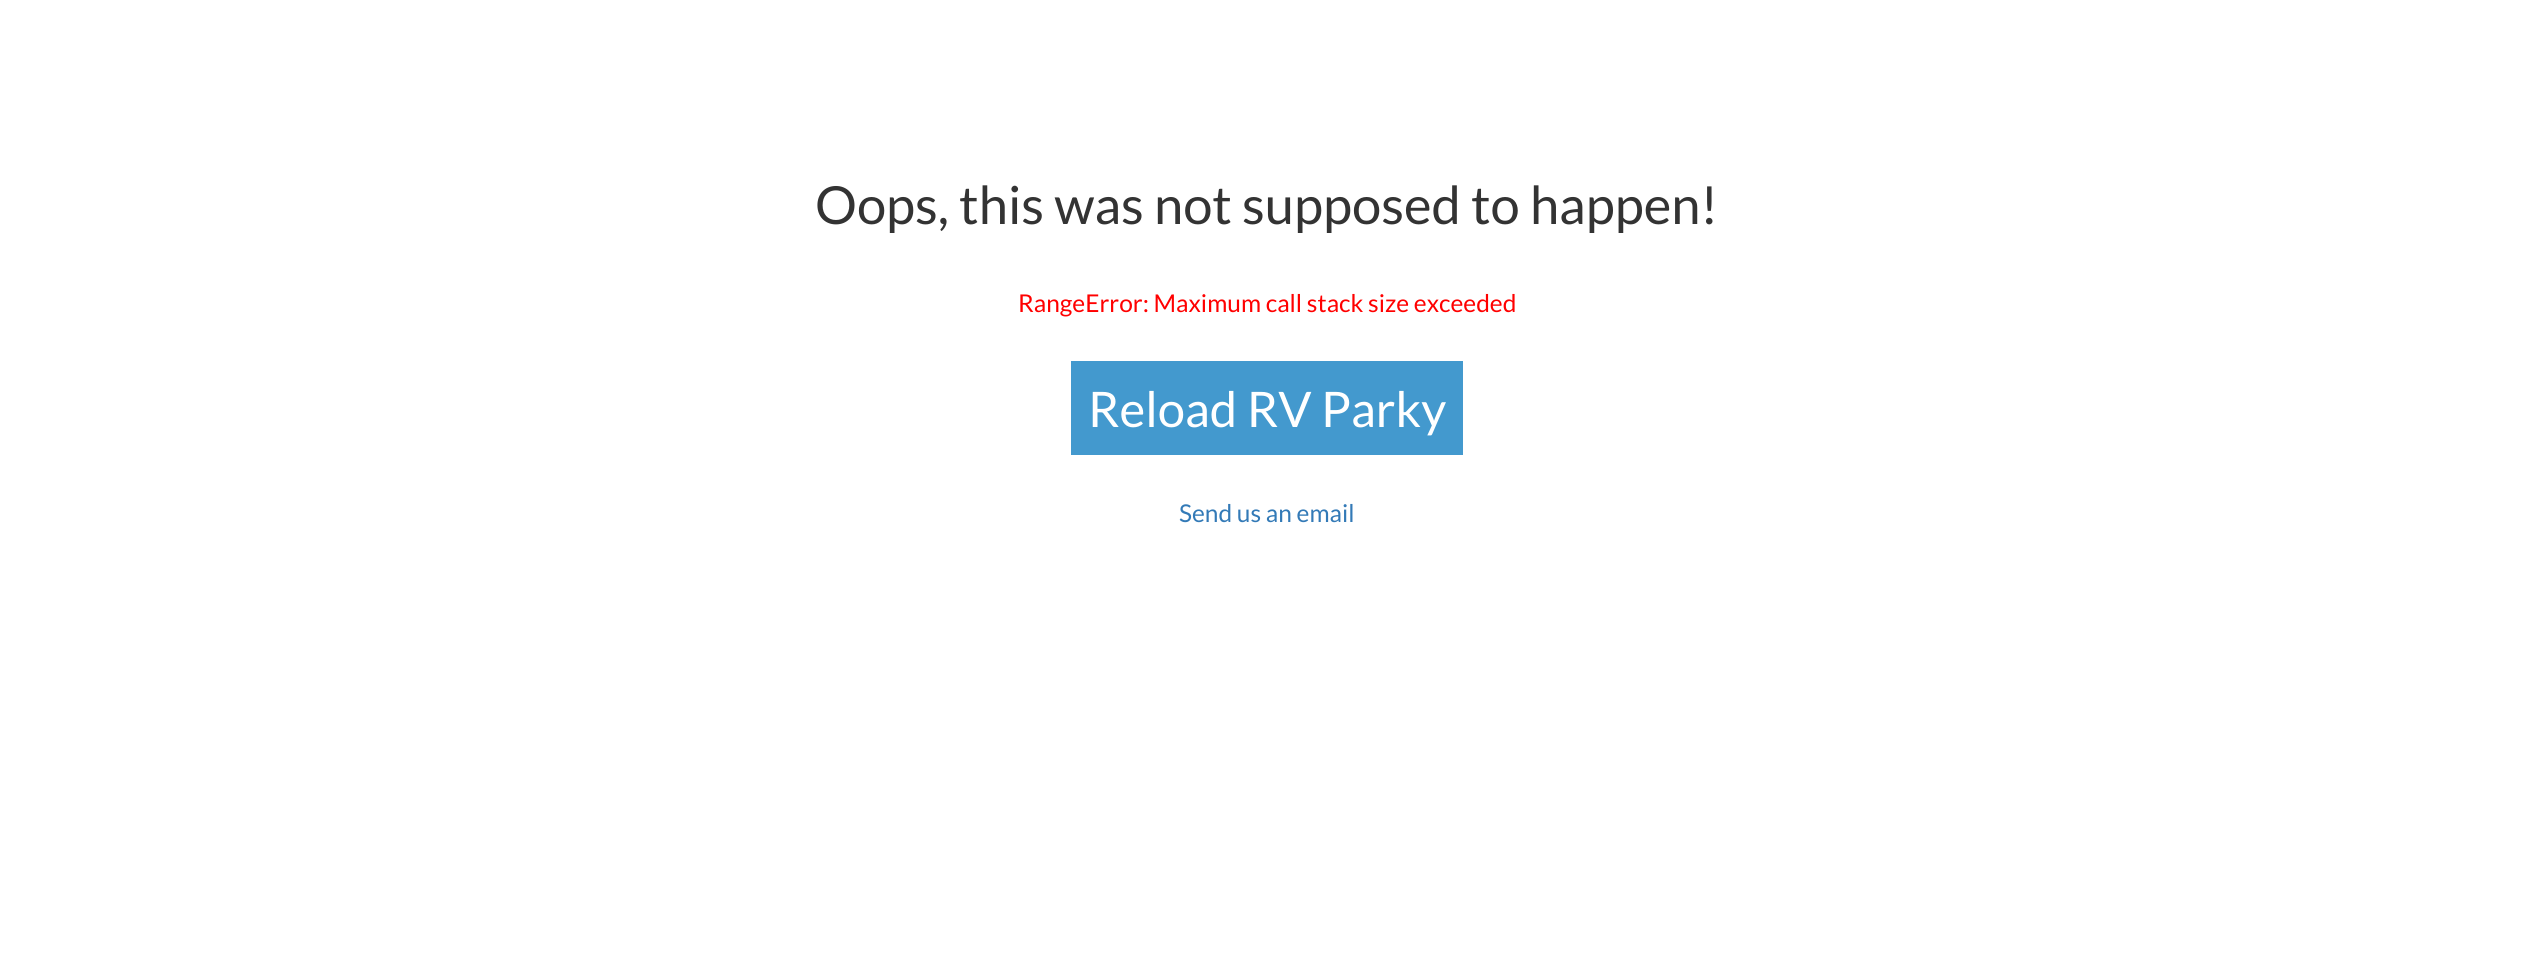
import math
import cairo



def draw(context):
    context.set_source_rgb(1, 1, 1)
    context.paint()
    context.set_source_rgb(67 / 255, 153 / 255, 206 / 255)
    context.rectangle(1071, 361, 392, 94)
    context.fill()
    context.select_font_face("Lato")
    context.set_font_size(52.5)
    context.set_source_rgb(51 / 255, 51 / 255, 51 / 255)
    context.move_to(815, 224)
    context.show_text("Oops, this was not supposed to happen!")
    context.set_font_size(24.5)
    context.set_source_rgb(1, 0, 0)
    context.move_to(1018, 312)
    context.show_text("RangeError: Maximum call stack size exceeded")
    context.set_font_size(49)
    context.set_source_rgb(1, 1, 1)
    context.move_to(1088, 427)
    context.show_text("Reload RV Parky")
    context.set_font_size(24.5)
    context.set_source_rgb(51 / 255, 122 / 255, 183 / 255)
    context.move_to(1179, 522)
    context.show_text("Send us an email")


surface = cairo.ImageSurface(cairo.Format.RGB24, 2533, 967)
context = cairo.Context(surface)
options = cairo.FontOptions()
options.set_hint_metrics(cairo.HintMetrics.OFF)
options.set_hint_style(cairo.HintStyle.NONE)
context.set_font_options(options)
context.set_miter_limit(4)
draw(context)
surface.write_to_png("out.png")
